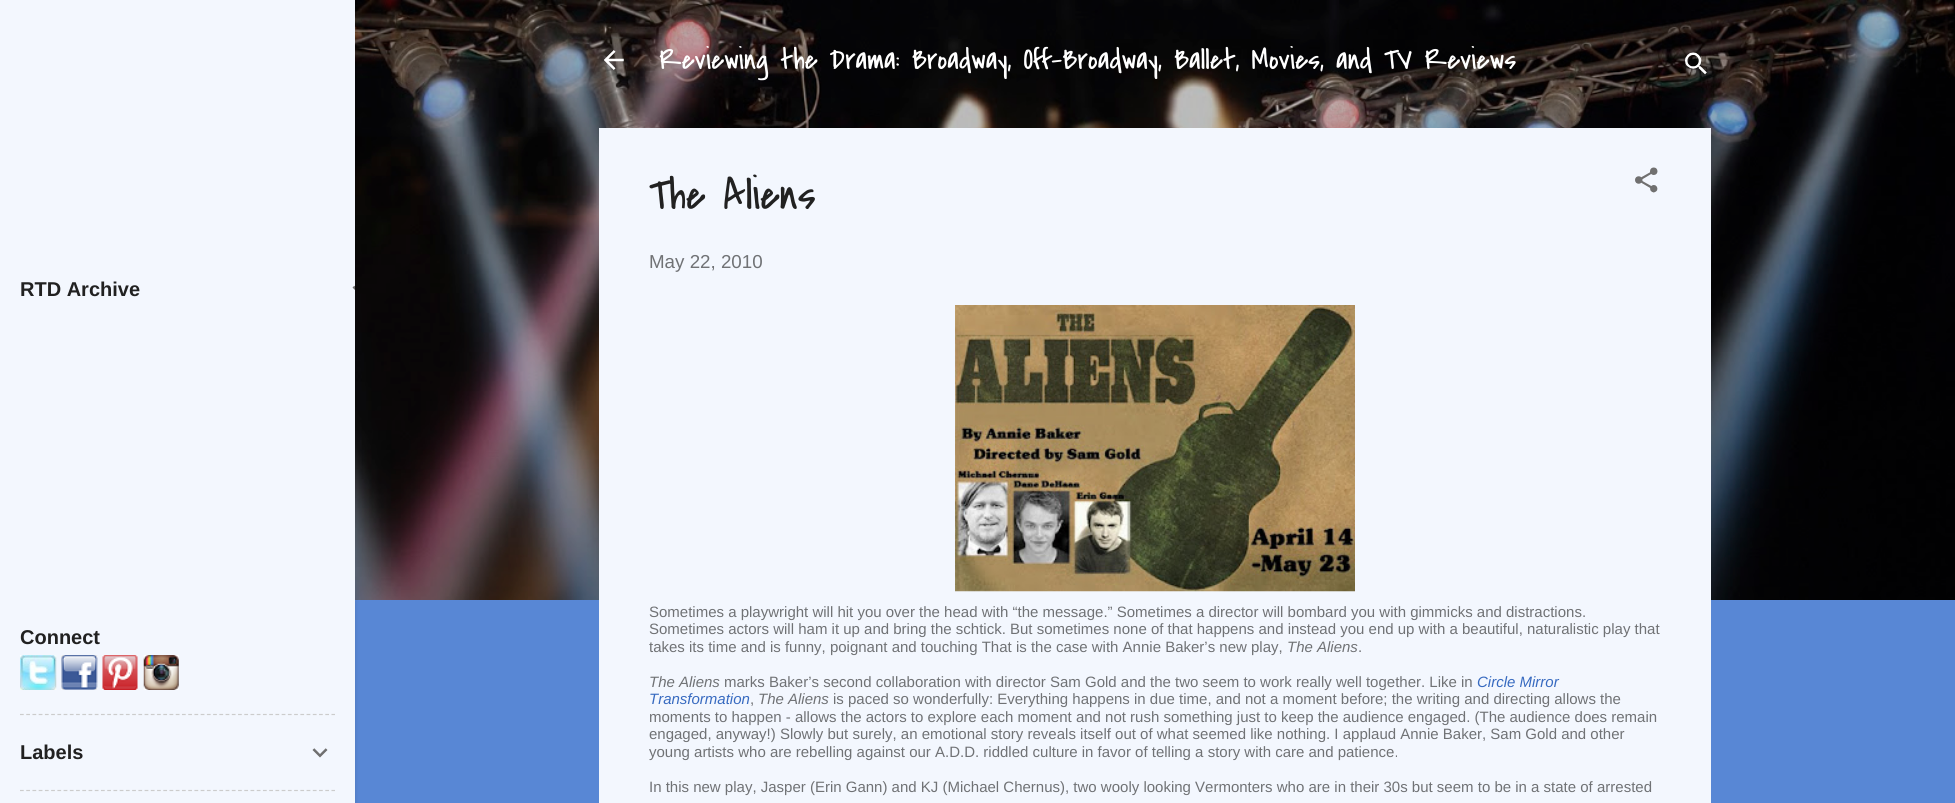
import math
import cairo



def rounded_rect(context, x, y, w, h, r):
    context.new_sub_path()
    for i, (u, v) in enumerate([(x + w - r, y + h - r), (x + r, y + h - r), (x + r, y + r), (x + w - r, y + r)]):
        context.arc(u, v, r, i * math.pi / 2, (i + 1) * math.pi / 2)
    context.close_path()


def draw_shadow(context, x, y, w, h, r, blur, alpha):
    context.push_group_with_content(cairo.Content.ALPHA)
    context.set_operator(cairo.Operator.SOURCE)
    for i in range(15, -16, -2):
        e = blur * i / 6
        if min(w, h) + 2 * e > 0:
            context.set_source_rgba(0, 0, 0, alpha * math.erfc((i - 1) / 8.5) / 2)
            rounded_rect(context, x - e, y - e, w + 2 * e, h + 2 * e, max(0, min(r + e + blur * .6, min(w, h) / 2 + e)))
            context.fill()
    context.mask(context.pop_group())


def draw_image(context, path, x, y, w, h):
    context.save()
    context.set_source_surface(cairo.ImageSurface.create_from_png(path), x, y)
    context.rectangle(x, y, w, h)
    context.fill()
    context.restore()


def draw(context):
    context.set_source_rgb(88 / 255, 135 / 255, 213 / 255)
    context.paint()
    draw_image(context, "images/7.png", 355, 0, 1600, 600)
    context.set_source_rgb(0, 0, 0)
    draw_shadow(context, 1, 601, 355, 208, 0, 2, 0.1)
    context.set_source_rgb(243 / 255, 247 / 255, 254 / 255)
    context.rectangle(0, 0, 355, 803)
    context.fill()
    draw_image(context, "images/1.png", 352, 285, 3, 5)
    draw_image(context, "images/2.png", 20, 655, 37, 35)
    draw_image(context, "images/3.png", 61, 655, 37, 35)
    draw_image(context, "images/4.png", 102, 655, 36, 35)
    draw_image(context, "images/5.png", 143, 655, 36, 35)
    context.new_path()
    context.move_to(20, 714.5)
    context.line_to(335, 714.5)
    context.set_source_rgb(204 / 255, 204 / 255, 204 / 255)
    context.set_line_width(1.2)
    context.set_dash([3.75, 2.48])
    context.stroke()
    draw_image(context, "images/6.png", 312, 748, 16, 10)
    context.new_path()
    context.move_to(20, 790.5)
    context.line_to(335, 790.5)
    context.stroke()
    draw_image(context, "images/8.png", 604, 50, 20, 20)
    draw_image(context, "images/9.png", 1685, 52, 22, 23)
    context.set_source_rgb(243 / 255, 247 / 255, 254 / 255)
    context.rectangle(599, 128, 1112, 675)
    context.fill()
    draw_image(context, "images/10.png", 1635, 167, 23, 26)
    draw_image(context, "images/11.png", 955, 305, 400, 287)
    context.select_font_face("Liberation Sans", cairo.FontSlant.NORMAL, cairo.FontWeight.BOLD)
    context.set_font_size(20)
    context.set_source_rgb(33 / 255, 33 / 255, 33 / 255)
    context.move_to(20, 296)
    context.show_text("RTD Archive")
    context.move_to(20, 644)
    context.show_text("Connect")
    context.move_to(20, 759)
    context.show_text("Labels")
    context.select_font_face("Covered By Your Grace")
    context.set_font_size(30)
    context.set_source_rgb(1, 1, 1)
    context.move_to(659, 69)
    context.show_text("Reviewing the Drama: Broadway, Off-Broadway, Ballet, Movies, and TV Reviews")
    context.set_font_size(45)
    context.set_source_rgb(33 / 255, 33 / 255, 33 / 255)
    context.move_to(649, 209)
    context.show_text("The Aliens")
    context.select_font_face("Liberation Sans")
    context.set_font_size(18.75)
    context.set_source_rgb(112 / 255, 114 / 255, 117 / 255)
    context.move_to(649, 268)
    context.show_text("May 22, 2010")
    context.set_font_size(15)
    context.move_to(649, 617)
    context.show_text("Sometimes a playwright will hit you over the head with “the message.” Sometimes a director will bombard you with gimmicks and distractions.")
    context.move_to(649, 634)
    context.show_text("Sometimes actors will ham it up and bring the schtick. But sometimes none of that happens and instead you end up with a beautiful, naturalistic play that")
    context.move_to(649, 652)
    context.show_text("takes its time and is funny, poignant and touching That is the case with Annie Baker’s new play,")
    context.select_font_face("Liberation Sans", cairo.FontSlant.ITALIC)
    context.move_to(1287, 652)
    context.show_text("The Aliens")
    context.select_font_face("Liberation Sans")
    context.move_to(1358, 652)
    context.show_text(".")
    context.select_font_face("Liberation Sans", cairo.FontSlant.ITALIC)
    context.move_to(649, 687)
    context.show_text("The Aliens")
    context.select_font_face("Liberation Sans")
    context.move_to(724, 687)
    context.show_text("marks Baker’s second collaboration with director Sam Gold and the two seem to work really well together. Like in")
    context.select_font_face("Liberation Sans", cairo.FontSlant.ITALIC)
    context.set_source_rgb(55 / 255, 106 / 255, 192 / 255)
    context.move_to(1477, 687)
    context.show_text("Circle Mirror")
    context.move_to(649, 704)
    context.show_text("Transformation")
    context.select_font_face("Liberation Sans")
    context.set_source_rgb(112 / 255, 114 / 255, 117 / 255)
    context.move_to(750, 704)
    context.show_text(",")
    context.select_font_face("Liberation Sans", cairo.FontSlant.ITALIC)
    context.move_to(758, 704)
    context.show_text("The Aliens")
    context.select_font_face("Liberation Sans")
    context.move_to(833, 704)
    context.show_text("is paced so wonderfully: Everything happens in due time, and not a moment before; the writing and directing allows the")
    context.move_to(649, 722)
    context.show_text("moments to happen - allows the actors to explore each moment and not rush something just to keep the audience engaged. (The audience does remain")
    context.move_to(649, 739)
    context.show_text("engaged, anyway!) Slowly but surely, an emotional story reveals itself out of what seemed like nothing. I applaud Annie Baker, Sam Gold and other")
    context.move_to(649, 757)
    context.show_text("young artists who are rebelling against our A.D.D. riddled culture in favor of telling a story with care and patience.")
    context.move_to(649, 792)
    context.show_text("In this new play, Jasper (Erin Gann) and KJ (Michael Chernus), two wooly looking Vermonters who are in their 30s but seem to be in a state of arrested")


surface = cairo.ImageSurface(cairo.Format.RGB24, 1955, 803)
context = cairo.Context(surface)
options = cairo.FontOptions()
options.set_hint_metrics(cairo.HintMetrics.OFF)
options.set_hint_style(cairo.HintStyle.NONE)
context.set_font_options(options)
context.set_miter_limit(4)
draw(context)
surface.write_to_png("out.png")
